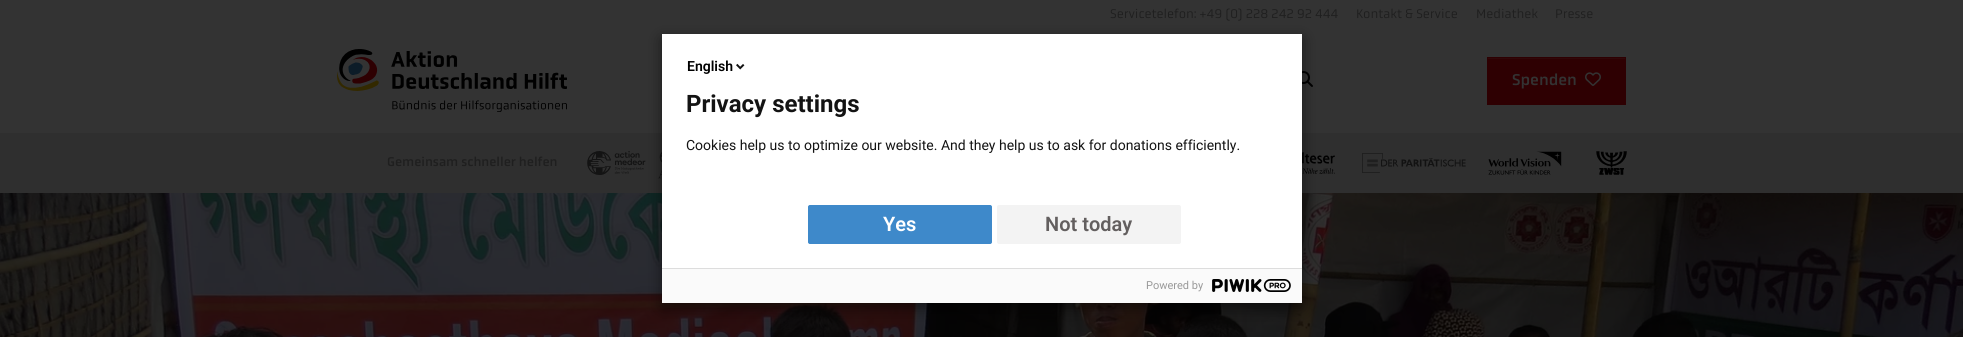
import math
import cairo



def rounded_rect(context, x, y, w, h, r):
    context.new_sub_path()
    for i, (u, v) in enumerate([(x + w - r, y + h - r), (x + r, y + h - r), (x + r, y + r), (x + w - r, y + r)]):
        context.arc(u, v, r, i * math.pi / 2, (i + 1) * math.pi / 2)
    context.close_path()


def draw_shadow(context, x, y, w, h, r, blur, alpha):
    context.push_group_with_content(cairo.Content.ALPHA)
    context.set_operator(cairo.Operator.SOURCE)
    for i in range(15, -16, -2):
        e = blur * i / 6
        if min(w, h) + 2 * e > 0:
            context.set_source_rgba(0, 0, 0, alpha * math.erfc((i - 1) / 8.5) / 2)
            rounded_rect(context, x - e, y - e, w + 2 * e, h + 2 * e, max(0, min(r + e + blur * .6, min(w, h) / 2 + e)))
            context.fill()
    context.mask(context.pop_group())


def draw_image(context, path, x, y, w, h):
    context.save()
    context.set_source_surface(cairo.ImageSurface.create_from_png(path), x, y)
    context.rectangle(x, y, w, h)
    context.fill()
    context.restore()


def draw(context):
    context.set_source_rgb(51 / 255, 51 / 255, 51 / 255)
    context.paint()
    draw_image(context, "images/1.png", 337, 49, 230, 63)
    draw_image(context, "images/2.png", 1302, 71, 11, 16)
    context.set_source_rgb(46 / 255, 0, 2 / 255)
    context.rectangle(1487, 57, 139, 48)
    context.fill()
    context.set_source_rgb(47 / 255, 8 / 255, 9 / 255)
    context.rectangle(1488, 58, 137, 1)
    context.fill()
    draw_image(context, "images/3.png", 1585, 72, 16, 14)
    context.set_source_rgb(47 / 255, 47 / 255, 47 / 255)
    context.rectangle(0, 133, 1963, 60)
    context.fill()
    draw_image(context, "images/4.png", 587, 151, 1040, 28)
    draw_image(context, "images/7.png", 0, 193, 1963, 144)
    context.set_source_rgb(0, 0, 0)
    draw_shadow(context, 662, 39, 640, 269, 0, 7.5, 0.5)
    context.set_source_rgb(1, 1, 1)
    context.rectangle(662, 34, 640, 234)
    context.fill()
    draw_image(context, "images/5.png", 736, 63, 9, 7)
    context.set_source_rgb(62 / 255, 137 / 255, 202 / 255)
    rounded_rect(context, 808.5, 205.5, 183, 38, 1.5)
    context.fill_preserve()
    context.set_line_width(1)
    context.stroke()
    context.set_source_rgb(243 / 255, 243 / 255, 243 / 255)
    rounded_rect(context, 997, 205, 184, 39, 2)
    context.fill()
    context.set_source_rgb(250 / 255, 250 / 255, 250 / 255)
    context.rectangle(662, 269, 640, 34)
    context.fill()
    context.set_source_rgb(221 / 255, 221 / 255, 221 / 255)
    context.rectangle(662, 268, 640, 1)
    context.fill()
    draw_image(context, "images/6.png", 1212, 279, 79, 13)
    context.select_font_face("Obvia")
    context.set_font_size(13)
    context.set_source_rgb(31 / 255, 31 / 255, 31 / 255)
    context.move_to(1110, 18)
    context.show_text("Servicetelefon: +49 (0) 228 242 92 444")
    context.move_to(1356, 18)
    context.show_text("Kontakt & Service")
    context.move_to(1476, 18)
    context.show_text("Mediathek")
    context.move_to(1555, 18)
    context.show_text("Presse")
    context.select_font_face("Obvia SemiBold")
    context.set_font_size(16)
    context.set_source_rgb(51 / 255, 51 / 255, 51 / 255)
    context.move_to(1512, 85)
    context.show_text("Spenden")
    context.set_font_size(13)
    context.set_source_rgb(31 / 255, 31 / 255, 31 / 255)
    context.move_to(387, 166)
    context.show_text("Gemeinsam schneller helfen")
    context.select_font_face("Roboto SemiBold")
    context.set_font_size(14)
    context.set_source_rgb(0, 0, 0)
    context.move_to(687, 71)
    context.show_text("English")
    context.select_font_face("Roboto", cairo.FontSlant.NORMAL, cairo.FontWeight.BOLD)
    context.set_font_size(24)
    context.set_source_rgb(19 / 255, 19 / 255, 19 / 255)
    context.move_to(686, 112)
    context.show_text("Privacy settings")
    context.select_font_face("Roboto")
    context.set_font_size(14)
    context.move_to(686, 150)
    context.show_text("Cookies help us to optimize our website. And they help us to ask for donations efficiently.")
    context.select_font_face("Roboto SemiBold")
    context.set_font_size(20)
    context.set_source_rgb(1, 1, 1)
    context.move_to(883, 231)
    context.show_text("Yes")
    context.set_source_rgb(99 / 255, 95 / 255, 95 / 255)
    context.move_to(1045, 231)
    context.show_text("Not today")
    context.select_font_face("Roboto")
    context.set_font_size(11)
    context.set_source_rgb(153 / 255, 153 / 255, 153 / 255)
    context.move_to(1146, 289)
    context.show_text("Powered by")


surface = cairo.ImageSurface(cairo.Format.RGB24, 1963, 337)
context = cairo.Context(surface)
options = cairo.FontOptions()
options.set_hint_metrics(cairo.HintMetrics.OFF)
options.set_hint_style(cairo.HintStyle.NONE)
context.set_font_options(options)
context.set_miter_limit(4)
draw(context)
surface.write_to_png("out.png")
